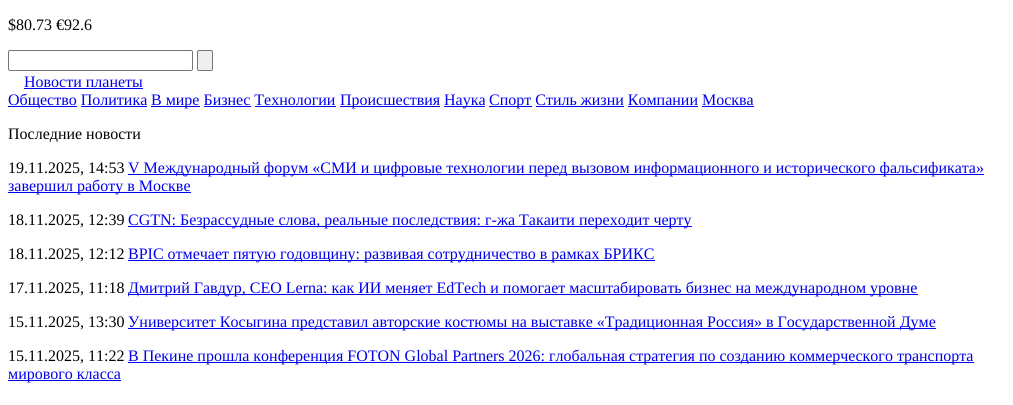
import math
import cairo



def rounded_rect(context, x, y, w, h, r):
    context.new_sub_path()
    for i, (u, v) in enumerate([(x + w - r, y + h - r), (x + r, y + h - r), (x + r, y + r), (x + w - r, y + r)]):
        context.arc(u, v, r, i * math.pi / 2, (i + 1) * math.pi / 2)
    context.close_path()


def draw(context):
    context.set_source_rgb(1, 1, 1)
    context.paint()
    rounded_rect(context, 8.5, 50.5, 184, 20, 1.5)
    context.set_source_rgb(118 / 255, 118 / 255, 118 / 255)
    context.set_line_width(1)
    context.stroke()
    context.set_source_rgb(239 / 255, 239 / 255, 239 / 255)
    rounded_rect(context, 197.5, 50.5, 15, 20, 1.5)
    context.fill_preserve()
    context.set_source_rgb(118 / 255, 118 / 255, 118 / 255)
    context.stroke()
    context.set_source_rgb(0, 0, 238 / 255)
    context.rectangle(24, 88, 119, 1)
    context.fill()
    context.rectangle(8, 106, 69, 1)
    context.fill()
    context.rectangle(151, 106, 49, 1)
    context.fill()
    context.rectangle(340, 106, 100, 1)
    context.fill()
    context.rectangle(444, 106, 41, 1)
    context.fill()
    context.rectangle(489, 106, 43, 1)
    context.fill()
    context.rectangle(81, 106, 66, 1)
    context.fill()
    context.rectangle(204, 106, 47, 1)
    context.fill()
    context.rectangle(255, 106, 81, 1)
    context.fill()
    context.rectangle(536, 106, 88, 1)
    context.fill()
    context.rectangle(628, 106, 70, 1)
    context.fill()
    context.rectangle(702, 106, 52, 1)
    context.fill()
    context.rectangle(128, 174, 856, 1)
    context.fill()
    context.rectangle(8, 192, 183, 1)
    context.fill()
    context.rectangle(128, 226, 564, 1)
    context.fill()
    context.rectangle(128, 260, 527, 1)
    context.fill()
    context.rectangle(128, 294, 790, 1)
    context.fill()
    context.rectangle(128, 328, 808, 1)
    context.fill()
    context.rectangle(128, 362, 846, 1)
    context.fill()
    context.rectangle(8, 380, 113, 1)
    context.fill()
    context.select_font_face("Liberation Serif")
    context.set_font_size(16)
    context.set_source_rgb(0, 0, 0)
    context.move_to(8, 30)
    context.show_text("$80.73 €92.6")
    context.set_source_rgb(0, 0, 238 / 255)
    context.move_to(24, 87)
    context.show_text("Новости планеты")
    context.move_to(8, 105)
    context.show_text("Общество Политика")
    context.move_to(151, 105)
    context.show_text("В мире Бизнес Технологии")
    context.move_to(340, 105)
    context.show_text("Происшествия")
    context.move_to(444, 105)
    context.show_text("Наука")
    context.move_to(489, 105)
    context.show_text("Спорт Стиль жизни Компании Москва")
    context.set_source_rgb(0, 0, 0)
    context.move_to(8, 139)
    context.show_text("Последние новости")
    context.move_to(8, 173)
    context.show_text("19.11.2025, 14:53")
    context.set_source_rgb(0, 0, 238 / 255)
    context.move_to(128, 173)
    context.show_text("V Международный форум «СМИ и цифровые технологии перед вызовом информационного и исторического фальсификата»")
    context.move_to(8, 191)
    context.show_text("завершил работу в Москве")
    context.set_source_rgb(0, 0, 0)
    context.move_to(8, 225)
    context.show_text("18.11.2025, 12:39")
    context.set_source_rgb(0, 0, 238 / 255)
    context.move_to(128, 225)
    context.show_text("CGTN: Безрассудные слова, реальные последствия: г-жа Такаити переходит черту")
    context.set_source_rgb(0, 0, 0)
    context.move_to(8, 259)
    context.show_text("18.11.2025, 12:12")
    context.set_source_rgb(0, 0, 238 / 255)
    context.move_to(128, 259)
    context.show_text("BPIC отмечает пятую годовщину: развивая сотрудничество в рамках БРИКС")
    context.set_source_rgb(0, 0, 0)
    context.move_to(8, 293)
    context.show_text("17.11.2025, 11:18")
    context.set_source_rgb(0, 0, 238 / 255)
    context.move_to(128, 293)
    context.show_text("Дмитрий Гавдур, СЕО Lerna: как ИИ меняет EdTech и помогает масштабировать бизнес на международном уровне")
    context.set_source_rgb(0, 0, 0)
    context.move_to(8, 327)
    context.show_text("15.11.2025, 13:30")
    context.set_source_rgb(0, 0, 238 / 255)
    context.move_to(128, 327)
    context.show_text("Университет Косыгина представил авторские костюмы на выставке «Традиционная Россия» в Государственной Думе")
    context.set_source_rgb(0, 0, 0)
    context.move_to(8, 361)
    context.show_text("15.11.2025, 11:22")
    context.set_source_rgb(0, 0, 238 / 255)
    context.move_to(128, 361)
    context.show_text("В Пекине прошла конференция FOTON Global Partners 2026: глобальная стратегия по созданию коммерческого транспорта")
    context.move_to(8, 379)
    context.show_text("мирового класса")


surface = cairo.ImageSurface(cairo.Format.RGB24, 1013, 405)
context = cairo.Context(surface)
options = cairo.FontOptions()
options.set_hint_metrics(cairo.HintMetrics.OFF)
options.set_hint_style(cairo.HintStyle.NONE)
context.set_font_options(options)
context.set_miter_limit(4)
draw(context)
surface.write_to_png("out.png")
